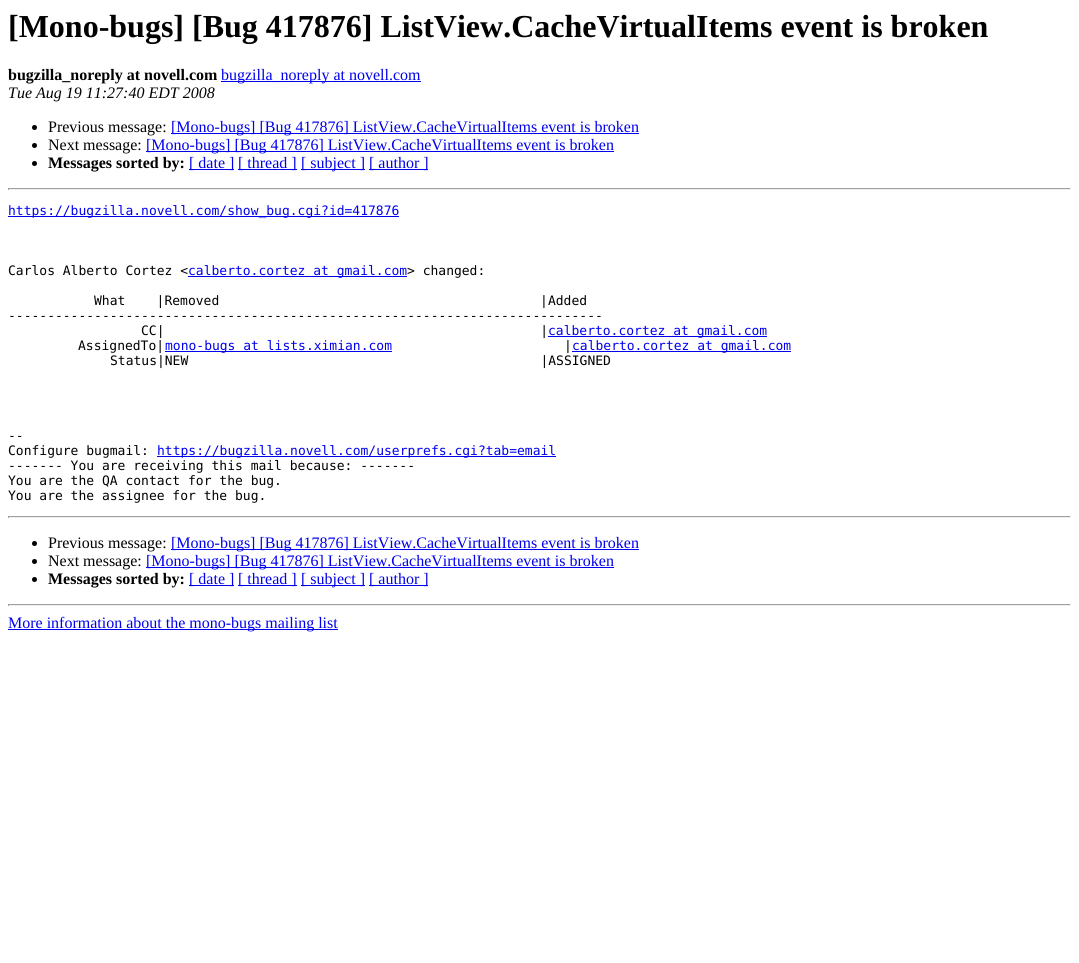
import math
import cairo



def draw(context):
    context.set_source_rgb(1, 1, 1)
    context.paint()
    context.set_source_rgb(0, 0, 238 / 255)
    context.rectangle(221, 81, 200, 1)
    context.fill()
    context.set_source_rgb(0, 0, 0)
    context.arc(34.5, 127.5, 2.5, 0, 2 * math.pi)
    context.fill()
    context.set_source_rgb(0, 0, 238 / 255)
    context.rectangle(171, 133, 468, 1)
    context.fill()
    context.set_source_rgb(0, 0, 0)
    context.arc(34.5, 145.5, 2.5, 0, 2 * math.pi)
    context.fill()
    context.set_source_rgb(0, 0, 238 / 255)
    context.rectangle(146, 151, 468, 1)
    context.fill()
    context.set_source_rgb(0, 0, 0)
    context.arc(34.5, 163.5, 2.5, 0, 2 * math.pi)
    context.fill()
    context.set_source_rgb(0, 0, 238 / 255)
    context.rectangle(189, 169, 45, 1)
    context.fill()
    context.rectangle(238, 169, 59, 1)
    context.fill()
    context.rectangle(301, 169, 64, 1)
    context.fill()
    context.rectangle(369, 169, 59, 1)
    context.fill()
    context.set_source_rgb(159 / 255, 159 / 255, 159 / 255)
    context.rectangle(8, 188, 1063, 1)
    context.fill()
    context.set_source_rgb(238 / 255, 238 / 255, 238 / 255)
    context.rectangle(1070, 188, 1, 2)
    context.fill()
    context.rectangle(8, 189, 1063, 1)
    context.fill()
    context.set_source_rgb(159 / 255, 159 / 255, 159 / 255)
    context.rectangle(8, 188, 1, 2)
    context.fill()
    context.set_source_rgb(0, 0, 238 / 255)
    context.rectangle(8, 216, 391, 1)
    context.fill()
    context.rectangle(188, 276, 219, 1)
    context.fill()
    context.rectangle(548, 336, 219, 1)
    context.fill()
    context.rectangle(165, 351, 227, 1)
    context.fill()
    context.rectangle(572, 351, 219, 1)
    context.fill()
    context.rectangle(157, 456, 399, 1)
    context.fill()
    context.set_source_rgb(159 / 255, 159 / 255, 159 / 255)
    context.rectangle(8, 516, 1063, 1)
    context.fill()
    context.set_source_rgb(238 / 255, 238 / 255, 238 / 255)
    context.rectangle(1070, 516, 1, 2)
    context.fill()
    context.rectangle(8, 517, 1063, 1)
    context.fill()
    context.set_source_rgb(159 / 255, 159 / 255, 159 / 255)
    context.rectangle(8, 516, 1, 2)
    context.fill()
    context.set_source_rgb(0, 0, 0)
    context.arc(34.5, 543.5, 2.5, 0, 2 * math.pi)
    context.fill()
    context.set_source_rgb(0, 0, 238 / 255)
    context.rectangle(171, 549, 468, 1)
    context.fill()
    context.set_source_rgb(0, 0, 0)
    context.arc(34.5, 561.5, 2.5, 0, 2 * math.pi)
    context.fill()
    context.set_source_rgb(0, 0, 238 / 255)
    context.rectangle(146, 567, 468, 1)
    context.fill()
    context.set_source_rgb(0, 0, 0)
    context.arc(34.5, 579.5, 2.5, 0, 2 * math.pi)
    context.fill()
    context.set_source_rgb(0, 0, 238 / 255)
    context.rectangle(189, 585, 45, 1)
    context.fill()
    context.rectangle(238, 585, 59, 1)
    context.fill()
    context.rectangle(301, 585, 64, 1)
    context.fill()
    context.rectangle(369, 585, 59, 1)
    context.fill()
    context.set_source_rgb(159 / 255, 159 / 255, 159 / 255)
    context.rectangle(8, 604, 1063, 1)
    context.fill()
    context.set_source_rgb(238 / 255, 238 / 255, 238 / 255)
    context.rectangle(1070, 604, 1, 2)
    context.fill()
    context.rectangle(8, 605, 1063, 1)
    context.fill()
    context.set_source_rgb(159 / 255, 159 / 255, 159 / 255)
    context.rectangle(8, 604, 1, 2)
    context.fill()
    context.set_source_rgb(0, 0, 238 / 255)
    context.rectangle(8, 629, 330, 1)
    context.fill()
    context.select_font_face("Liberation Serif", cairo.FontSlant.NORMAL, cairo.FontWeight.BOLD)
    context.set_font_size(32)
    context.set_source_rgb(0, 0, 0)
    context.move_to(8, 37)
    context.show_text("[Mono-bugs] [Bug 417876] ListView.CacheVirtualItems event is broken")
    context.set_font_size(16)
    context.move_to(8, 80)
    context.show_text("bugzilla_noreply at novell.com")
    context.select_font_face("Liberation Serif")
    context.set_source_rgb(0, 0, 238 / 255)
    context.move_to(221, 80)
    context.show_text("bugzilla_noreply at novell.com")
    context.select_font_face("Liberation Serif", cairo.FontSlant.ITALIC)
    context.set_source_rgb(0, 0, 0)
    context.move_to(8, 98)
    context.show_text("Tue Aug 19 11:27:40 EDT 2008")
    context.select_font_face("Liberation Serif")
    context.move_to(48, 132)
    context.show_text("Previous message:")
    context.set_source_rgb(0, 0, 238 / 255)
    context.move_to(171, 132)
    context.show_text("[Mono-bugs] [Bug 417876] ListView.CacheVirtualItems event is broken")
    context.set_source_rgb(0, 0, 0)
    context.move_to(48, 150)
    context.show_text("Next message:")
    context.set_source_rgb(0, 0, 238 / 255)
    context.move_to(146, 150)
    context.show_text("[Mono-bugs] [Bug 417876] ListView.CacheVirtualItems event is broken")
    context.select_font_face("Liberation Serif", cairo.FontSlant.NORMAL, cairo.FontWeight.BOLD)
    context.set_source_rgb(0, 0, 0)
    context.move_to(48, 168)
    context.show_text("Messages sorted by:")
    context.select_font_face("Liberation Serif")
    context.set_source_rgb(0, 0, 238 / 255)
    context.move_to(189, 168)
    context.show_text("[ date ]")
    context.move_to(238, 168)
    context.show_text("[ thread ]")
    context.move_to(301, 168)
    context.show_text("[ subject ]")
    context.move_to(369, 168)
    context.show_text("[ author ]")
    context.select_font_face("DejaVu Sans Mono")
    context.set_font_size(13)
    context.move_to(8, 215)
    context.show_text("https://bugzilla.novell.com/show_bug.cgi?id=417876")
    context.set_source_rgb(0, 0, 0)
    context.move_to(8, 275)
    context.show_text("Carlos Alberto Cortez <")
    context.set_source_rgb(0, 0, 238 / 255)
    context.move_to(188, 275)
    context.show_text("calberto.cortez at gmail.com")
    context.set_source_rgb(0, 0, 0)
    context.move_to(407, 275)
    context.show_text("> changed:")
    context.move_to(94, 305)
    context.show_text("What    |Removed                                         |Added")
    context.move_to(8, 320)
    context.show_text("----------------------------------------------------------------------------")
    context.move_to(141, 335)
    context.show_text("CC|                                                |")
    context.set_source_rgb(0, 0, 238 / 255)
    context.move_to(548, 335)
    context.show_text("calberto.cortez at gmail.com")
    context.set_source_rgb(0, 0, 0)
    context.move_to(78, 350)
    context.show_text("AssignedTo|")
    context.set_source_rgb(0, 0, 238 / 255)
    context.move_to(165, 350)
    context.show_text("mono-bugs at lists.ximian.com")
    context.set_source_rgb(0, 0, 0)
    context.move_to(564, 350)
    context.show_text("|")
    context.set_source_rgb(0, 0, 238 / 255)
    context.move_to(572, 350)
    context.show_text("calberto.cortez at gmail.com")
    context.set_source_rgb(0, 0, 0)
    context.move_to(110, 365)
    context.show_text("Status|NEW                                             |ASSIGNED")
    context.move_to(8, 440)
    context.show_text("--")
    context.move_to(8, 455)
    context.show_text("Configure bugmail:")
    context.set_source_rgb(0, 0, 238 / 255)
    context.move_to(157, 455)
    context.show_text("https://bugzilla.novell.com/userprefs.cgi?tab=email")
    context.set_source_rgb(0, 0, 0)
    context.move_to(8, 470)
    context.show_text("------- You are receiving this mail because: -------")
    context.move_to(8, 485)
    context.show_text("You are the QA contact for the bug.")
    context.move_to(8, 500)
    context.show_text("You are the assignee for the bug.")
    context.select_font_face("Liberation Serif")
    context.set_font_size(16)
    context.move_to(48, 548)
    context.show_text("Previous message:")
    context.set_source_rgb(0, 0, 238 / 255)
    context.move_to(171, 548)
    context.show_text("[Mono-bugs] [Bug 417876] ListView.CacheVirtualItems event is broken")
    context.set_source_rgb(0, 0, 0)
    context.move_to(48, 566)
    context.show_text("Next message:")
    context.set_source_rgb(0, 0, 238 / 255)
    context.move_to(146, 566)
    context.show_text("[Mono-bugs] [Bug 417876] ListView.CacheVirtualItems event is broken")
    context.select_font_face("Liberation Serif", cairo.FontSlant.NORMAL, cairo.FontWeight.BOLD)
    context.set_source_rgb(0, 0, 0)
    context.move_to(48, 584)
    context.show_text("Messages sorted by:")
    context.select_font_face("Liberation Serif")
    context.set_source_rgb(0, 0, 238 / 255)
    context.move_to(189, 584)
    context.show_text("[ date ]")
    context.move_to(238, 584)
    context.show_text("[ thread ]")
    context.move_to(301, 584)
    context.show_text("[ subject ]")
    context.move_to(369, 584)
    context.show_text("[ author ]")
    context.move_to(8, 628)
    context.show_text("More information about the mono-bugs mailing list")


surface = cairo.ImageSurface(cairo.Format.RGB24, 1079, 963)
context = cairo.Context(surface)
options = cairo.FontOptions()
options.set_hint_metrics(cairo.HintMetrics.OFF)
options.set_hint_style(cairo.HintStyle.NONE)
context.set_font_options(options)
context.set_miter_limit(4)
draw(context)
surface.write_to_png("out.png")
